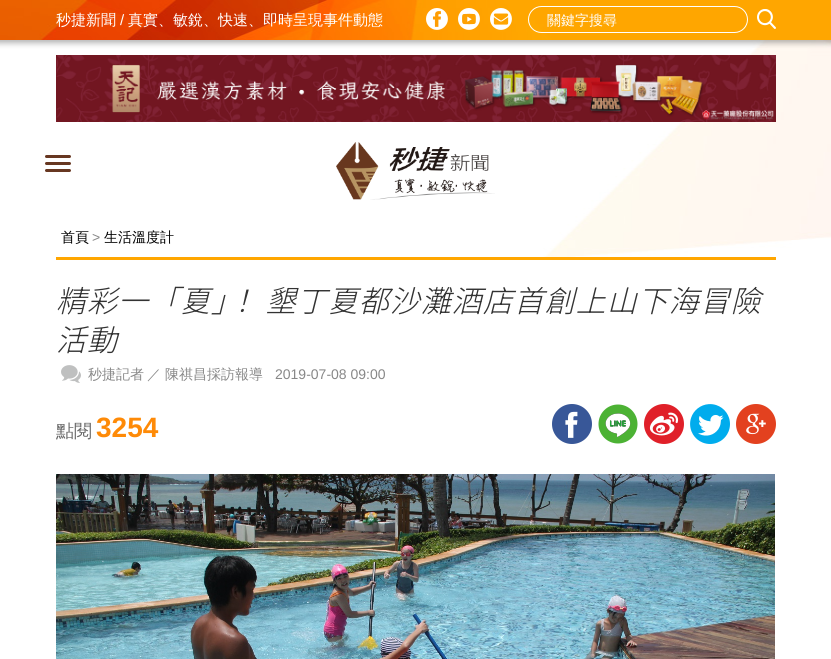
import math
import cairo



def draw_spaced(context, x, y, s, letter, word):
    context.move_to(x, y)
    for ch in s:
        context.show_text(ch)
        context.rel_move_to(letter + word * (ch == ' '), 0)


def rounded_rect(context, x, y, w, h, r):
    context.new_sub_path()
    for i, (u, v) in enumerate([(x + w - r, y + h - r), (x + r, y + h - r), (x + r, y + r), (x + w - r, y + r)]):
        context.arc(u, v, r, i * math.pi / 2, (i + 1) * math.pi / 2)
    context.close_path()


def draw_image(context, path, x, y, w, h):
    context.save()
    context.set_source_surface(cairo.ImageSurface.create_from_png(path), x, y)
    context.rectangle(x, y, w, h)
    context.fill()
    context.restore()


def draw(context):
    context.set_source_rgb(1, 1, 1)
    context.paint()
    draw_image(context, "images/1.png", 0, 0, 831, 259)
    draw_image(context, "images/2.png", 426, 8, 22, 22)
    draw_image(context, "images/3.png", 458, 8, 22, 22)
    draw_image(context, "images/4.png", 490, 8, 22, 22)
    rounded_rect(context, 528.5, 6.5, 219, 26, 13)
    context.set_source_rgb(1, 1, 1)
    context.set_line_width(1)
    context.stroke()
    draw_image(context, "images/5.png", 757, 9, 19, 20)
    draw_image(context, "images/6.png", 56, 55, 720, 67)
    context.set_source_rgb(103 / 255, 55 / 255, 33 / 255)
    rounded_rect(context, 45, 155, 26, 3, 1.5)
    context.fill()
    rounded_rect(context, 45, 162, 26, 3, 1.5)
    context.fill()
    rounded_rect(context, 45, 169, 26, 3, 1.5)
    context.fill()
    draw_image(context, "images/7.png", 336, 142, 159, 58)
    context.set_source_rgb(1, 166 / 255, 0)
    context.rectangle(56, 257, 720, 3)
    context.fill()
    draw_image(context, "images/8.png", 61, 365, 20, 18)
    draw_image(context, "images/9.png", 552, 404, 40, 40)
    draw_image(context, "images/10.png", 598, 404, 40, 40)
    draw_image(context, "images/11.png", 644, 404, 40, 40)
    draw_image(context, "images/12.png", 690, 404, 40, 40)
    draw_image(context, "images/13.png", 736, 404, 40, 40)
    draw_image(context, "images/14.png", 56, 474, 719, 185)
    context.select_font_face("WenQuanYi Zen Hei Medium")
    context.set_font_size(15)
    context.set_source_rgb(1, 1, 1)
    context.move_to(56, 25)
    context.show_text("秒捷新聞")
    context.select_font_face("Liberation Sans")
    context.move_to(120, 25)
    context.show_text("/")
    context.select_font_face("WenQuanYi Zen Hei Medium")
    context.move_to(128, 25)
    context.show_text("真實、敏銳、快速、即時呈現事件動態")
    context.set_font_size(14)
    context.move_to(547, 25)
    context.show_text("關鍵字搜尋")
    context.set_source_rgb(0, 0, 0)
    context.move_to(61, 242)
    context.show_text("首頁")
    context.select_font_face("Liberation Sans")
    context.set_source_rgb(136 / 255, 136 / 255, 136 / 255)
    context.move_to(92, 242)
    context.show_text(">")
    context.select_font_face("WenQuanYi Zen Hei Medium")
    context.set_source_rgb(0, 0, 0)
    context.move_to(104, 242)
    context.show_text("生活溫度計")
    context.select_font_face("Noto Sans TC Light", cairo.FontSlant.ITALIC)
    context.set_font_size(30)
    context.set_source_rgb(51 / 255, 51 / 255, 51 / 255)
    draw_spaced(context, 56, 312, "精彩一「夏｣！ 墾丁夏都沙灘酒店首創上山下海冒險", 1, 0)
    draw_spaced(context, 56, 351, "活動", 1, 0)
    context.select_font_face("WenQuanYi Zen Hei Medium")
    context.set_font_size(14)
    context.set_source_rgb(136 / 255, 136 / 255, 136 / 255)
    context.move_to(88, 379)
    context.show_text("秒捷記者")
    context.move_to(147, 379)
    context.show_text("／")
    context.move_to(165, 379)
    context.show_text("陳祺昌採訪報導")
    context.select_font_face("Liberation Sans")
    context.move_to(275, 379)
    context.show_text("2019-07-08 09:00")
    context.select_font_face("WenQuanYi Zen Hei Medium")
    context.set_font_size(18)
    context.set_source_rgb(102 / 255, 102 / 255, 102 / 255)
    context.move_to(56, 437)
    context.show_text("點閱")
    context.select_font_face("Liberation Sans", cairo.FontSlant.NORMAL, cairo.FontWeight.BOLD)
    context.set_font_size(28)
    context.set_source_rgb(254 / 255, 138 / 255, 7 / 255)
    context.move_to(96, 437)
    context.show_text("3254")


surface = cairo.ImageSurface(cairo.Format.RGB24, 831, 659)
context = cairo.Context(surface)
options = cairo.FontOptions()
options.set_hint_metrics(cairo.HintMetrics.OFF)
options.set_hint_style(cairo.HintStyle.NONE)
context.set_font_options(options)
context.set_miter_limit(4)
draw(context)
surface.write_to_png("out.png")
